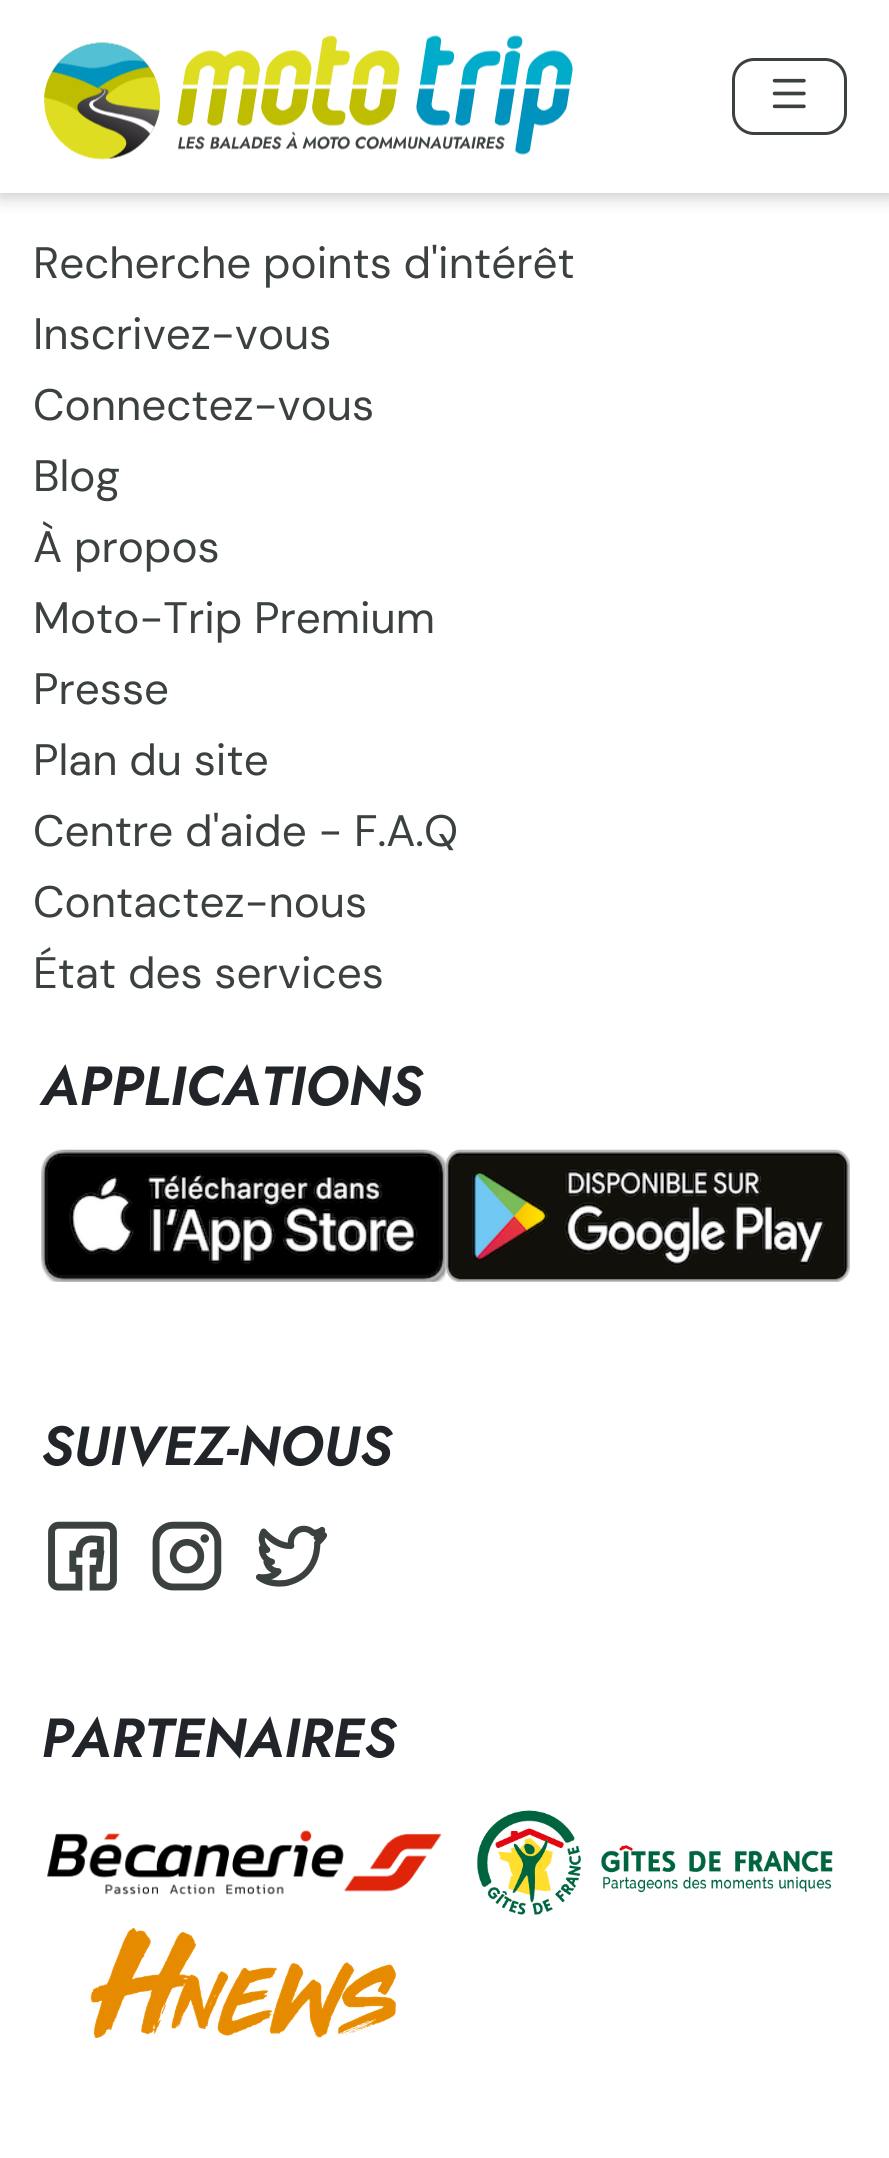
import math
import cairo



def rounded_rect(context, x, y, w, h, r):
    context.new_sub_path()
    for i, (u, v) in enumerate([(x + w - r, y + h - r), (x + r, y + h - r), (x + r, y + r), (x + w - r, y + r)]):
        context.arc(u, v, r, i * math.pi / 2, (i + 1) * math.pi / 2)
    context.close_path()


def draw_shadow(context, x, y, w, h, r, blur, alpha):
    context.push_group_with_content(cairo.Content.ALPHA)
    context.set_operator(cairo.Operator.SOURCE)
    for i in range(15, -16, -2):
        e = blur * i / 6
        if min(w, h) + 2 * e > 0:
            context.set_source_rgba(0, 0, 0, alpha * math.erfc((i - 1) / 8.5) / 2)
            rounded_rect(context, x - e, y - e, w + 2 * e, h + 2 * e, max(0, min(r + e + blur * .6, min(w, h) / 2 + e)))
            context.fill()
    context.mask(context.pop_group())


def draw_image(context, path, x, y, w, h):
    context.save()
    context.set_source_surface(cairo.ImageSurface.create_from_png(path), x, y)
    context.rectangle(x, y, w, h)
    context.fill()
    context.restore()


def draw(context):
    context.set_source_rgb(1, 1, 1)
    context.paint()
    context.set_source_rgb(0, 0, 0)
    draw_shadow(context, 0, 6, 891, 192, 0, 8, 0.2)
    context.set_source_rgb(1, 1, 1)
    context.rectangle(0, 0, 889, 193)
    context.fill()
    draw_image(context, "images/1.png", 44, 35, 529, 125)
    rounded_rect(context, 733.5, 59.5, 112, 74, 20.5)
    context.set_source_rgb(59 / 255, 65 / 255, 63 / 255)
    context.set_line_width(3)
    context.stroke()
    draw_image(context, "images/2.png", 772, 78, 34, 31)
    draw_image(context, "images/3.png", 41, 1149, 405, 133)
    draw_image(context, "images/4.png", 445, 1149, 405, 133)
    draw_image(context, "images/5.png", 48, 1521, 69, 70)
    draw_image(context, "images/6.png", 152, 1521, 70, 70)
    draw_image(context, "images/7.png", 255, 1525, 73, 62)
    draw_image(context, "images/8.png", 47, 1830, 395, 65)
    draw_image(context, "images/9.png", 477, 1810, 356, 105)
    draw_image(context, "images/10.png", 90, 1928, 306, 110)
    context.select_font_face("DM Sans")
    context.set_font_size(44)
    context.move_to(33, 278)
    context.show_text("Recherche points d'intérêt")
    context.move_to(33, 349)
    context.show_text("Inscrivez-vous")
    context.move_to(33, 420)
    context.show_text("Connectez-vous")
    context.move_to(33, 491)
    context.show_text("Blog")
    context.move_to(33, 562)
    context.show_text("À propos")
    context.move_to(33, 633)
    context.show_text("Moto-Trip Premium")
    context.move_to(33, 704)
    context.show_text("Presse")
    context.move_to(33, 775)
    context.show_text("Plan du site")
    context.move_to(33, 846)
    context.show_text("Centre d'aide - F.A.Q")
    context.move_to(33, 917)
    context.show_text("Contactez-nous")
    context.move_to(33, 988)
    context.show_text("État des services")
    context.select_font_face("Jost SemiBold", cairo.FontSlant.ITALIC)
    context.set_font_size(55)
    context.set_source_rgb(33 / 255, 37 / 255, 41 / 255)
    context.move_to(41, 1105)
    context.show_text("APPLICATIONS")
    context.move_to(41, 1465)
    context.show_text("SUIVEZ-NOUS")
    context.move_to(41, 1757)
    context.show_text("PARTENAIRES")


surface = cairo.ImageSurface(cairo.Format.RGB24, 889, 2158)
context = cairo.Context(surface)
options = cairo.FontOptions()
options.set_hint_metrics(cairo.HintMetrics.OFF)
options.set_hint_style(cairo.HintStyle.NONE)
context.set_font_options(options)
context.set_miter_limit(4)
draw(context)
surface.write_to_png("out.png")
